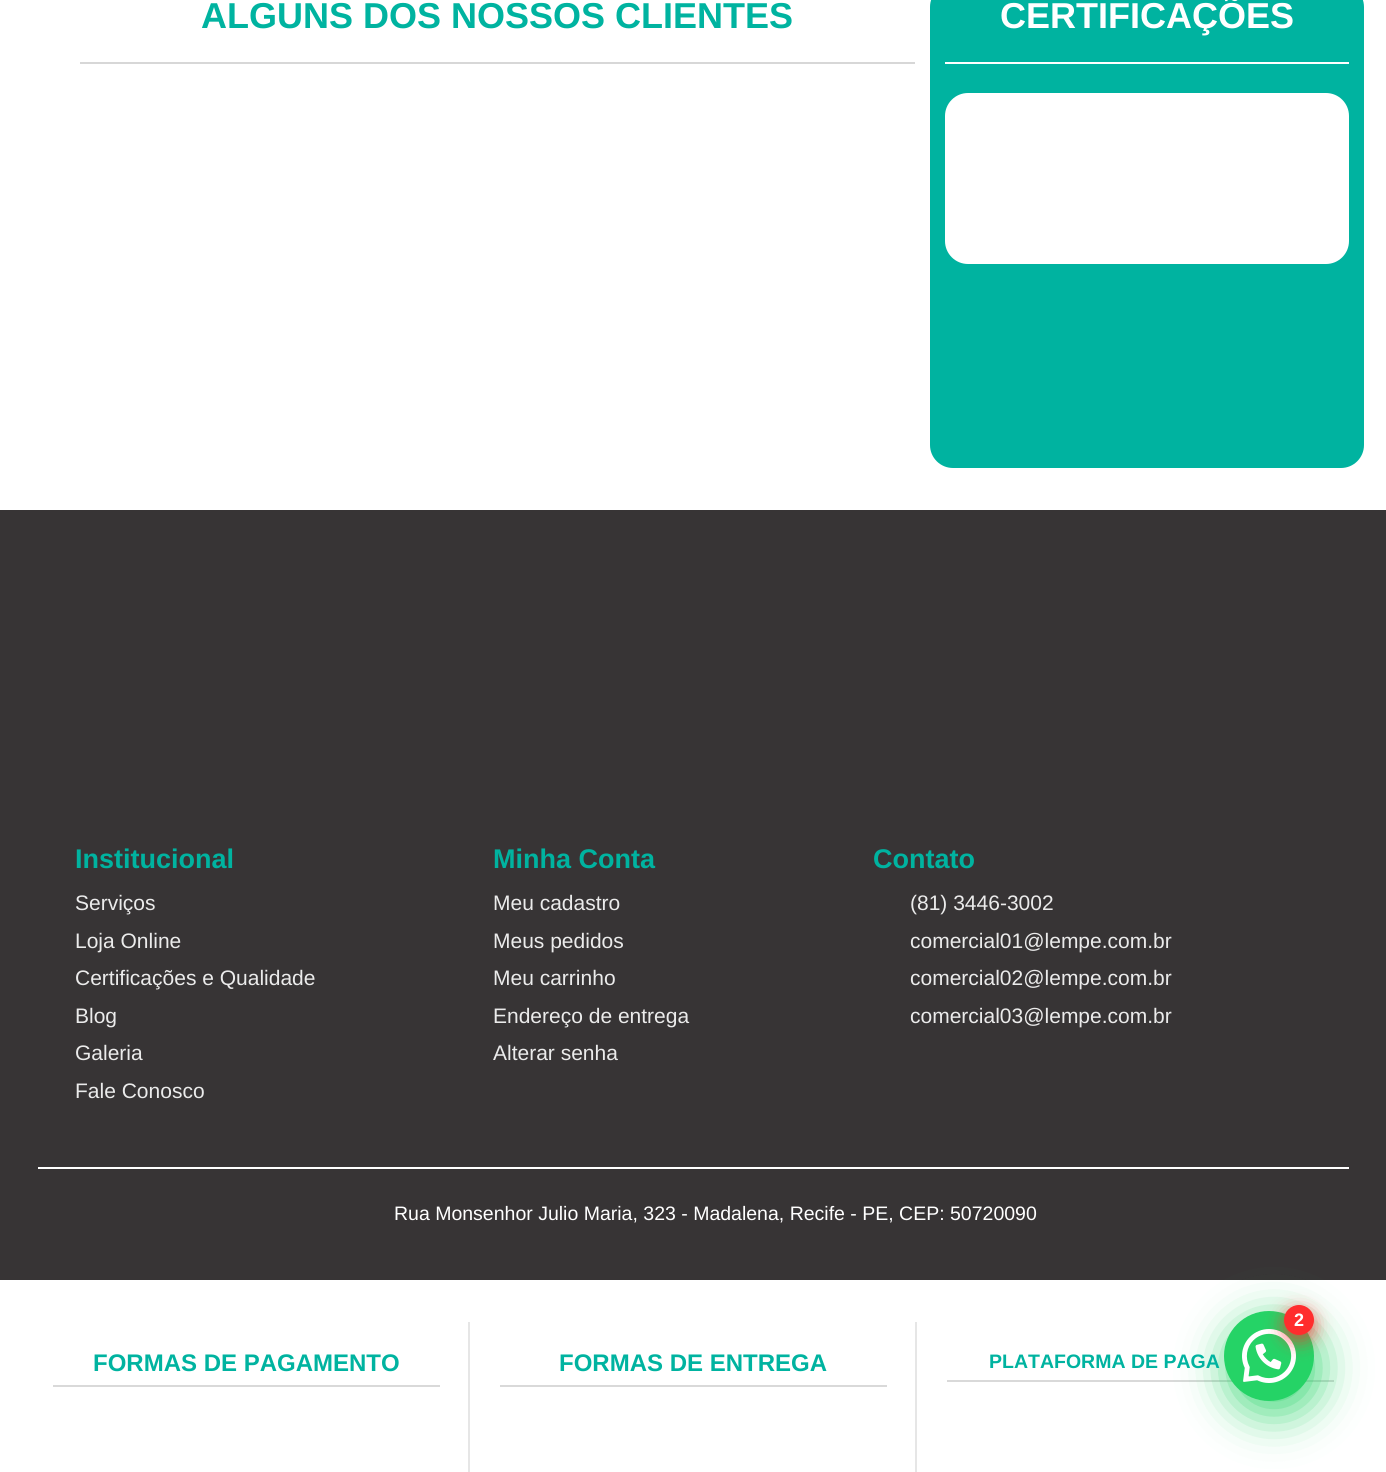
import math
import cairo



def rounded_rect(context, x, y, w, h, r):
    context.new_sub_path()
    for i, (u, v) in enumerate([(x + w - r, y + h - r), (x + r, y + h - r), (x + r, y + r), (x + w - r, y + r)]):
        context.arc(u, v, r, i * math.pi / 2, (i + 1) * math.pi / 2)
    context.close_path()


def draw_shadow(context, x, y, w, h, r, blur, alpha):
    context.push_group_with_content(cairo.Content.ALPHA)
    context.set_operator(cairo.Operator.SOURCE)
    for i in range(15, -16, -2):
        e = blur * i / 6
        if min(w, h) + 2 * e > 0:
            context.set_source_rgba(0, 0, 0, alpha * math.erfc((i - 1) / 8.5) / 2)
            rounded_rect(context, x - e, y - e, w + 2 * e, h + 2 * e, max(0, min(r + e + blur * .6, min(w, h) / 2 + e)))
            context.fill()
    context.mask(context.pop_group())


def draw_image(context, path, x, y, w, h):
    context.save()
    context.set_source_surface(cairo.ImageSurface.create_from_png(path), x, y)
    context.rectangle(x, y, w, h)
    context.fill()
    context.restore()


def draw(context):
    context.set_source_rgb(1, 1, 1)
    context.paint()
    context.set_source_rgb(215 / 255, 215 / 255, 215 / 255)
    context.rectangle(80, 62, 835, 2)
    context.fill()
    context.set_source_rgb(0, 179 / 255, 160 / 255)
    rounded_rect(context, 930, -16, 434, 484, 23)
    context.fill()
    context.set_source_rgb(1, 1, 1)
    context.rectangle(945, 62, 404, 2)
    context.fill()
    rounded_rect(context, 945, 93, 404, 171, 23)
    context.fill()
    context.set_source_rgb(55 / 255, 52 / 255, 53 / 255)
    context.rectangle(0, 510, 1386, 770)
    context.fill()
    context.set_source_rgb(1, 1, 1)
    context.rectangle(38, 1167, 1311, 2)
    context.fill()
    context.set_source_rgb(217 / 255, 217 / 255, 217 / 255)
    context.rectangle(53, 1385, 387, 2)
    context.fill()
    context.set_source_rgb(230 / 255, 230 / 255, 230 / 255)
    context.rectangle(468, 1322, 2, 150)
    context.fill()
    context.set_source_rgb(217 / 255, 217 / 255, 217 / 255)
    context.rectangle(500, 1385, 387, 2)
    context.fill()
    context.set_source_rgb(230 / 255, 230 / 255, 230 / 255)
    context.rectangle(915, 1322, 2, 150)
    context.fill()
    context.set_source_rgb(217 / 255, 217 / 255, 217 / 255)
    context.rectangle(947, 1380, 387, 2)
    context.fill()
    context.set_source_rgb(37 / 255, 211 / 255, 102 / 255)
    draw_shadow(context, 1229, 1323, 90, 90, 45, 22.5, 0.87)
    context.set_source_rgb(37 / 255, 211 / 255, 102 / 255)
    context.arc(1269, 1356, 45, 0, 2 * math.pi)
    context.fill()
    draw_image(context, "images/1.png", 1242, 1329, 54, 54)
    context.set_source_rgb(1, 45 / 255, 45 / 255)
    draw_shadow(context, 1284, 1311, 30, 30, 15, 9, 0.72)
    context.set_source_rgb(1, 45 / 255, 45 / 255)
    context.arc(1299, 1320, 15, 0, 2 * math.pi)
    context.fill()
    context.select_font_face("Liberation Sans", cairo.FontSlant.NORMAL, cairo.FontWeight.BOLD)
    context.set_font_size(36)
    context.set_source_rgb(0, 179 / 255, 160 / 255)
    context.move_to(201, 28)
    context.show_text("ALGUNS DOS NOSSOS CLIENTES")
    context.set_source_rgb(1, 1, 1)
    context.move_to(1000, 28)
    context.show_text("CERTIFICAÇÕES")
    context.set_font_size(27)
    context.set_source_rgb(0, 179 / 255, 160 / 255)
    context.move_to(75, 868)
    context.show_text("Institucional")
    context.select_font_face("Liberation Sans")
    context.set_font_size(21)
    context.set_source_rgb(235 / 255, 235 / 255, 235 / 255)
    context.move_to(75, 910)
    context.show_text("Serviços")
    context.move_to(75, 948)
    context.show_text("Loja Online")
    context.move_to(75, 985)
    context.show_text("Certificações e Qualidade")
    context.move_to(75, 1023)
    context.show_text("Blog")
    context.move_to(75, 1060)
    context.show_text("Galeria")
    context.move_to(75, 1098)
    context.show_text("Fale Conosco")
    context.select_font_face("Liberation Sans", cairo.FontSlant.NORMAL, cairo.FontWeight.BOLD)
    context.set_font_size(27)
    context.set_source_rgb(0, 179 / 255, 160 / 255)
    context.move_to(493, 868)
    context.show_text("Minha Conta")
    context.select_font_face("Liberation Sans")
    context.set_font_size(21)
    context.set_source_rgb(235 / 255, 235 / 255, 235 / 255)
    context.move_to(493, 910)
    context.show_text("Meu cadastro")
    context.move_to(493, 948)
    context.show_text("Meus pedidos")
    context.move_to(493, 985)
    context.show_text("Meu carrinho")
    context.move_to(493, 1023)
    context.show_text("Endereço de entrega")
    context.move_to(493, 1060)
    context.show_text("Alterar senha")
    context.select_font_face("Liberation Sans", cairo.FontSlant.NORMAL, cairo.FontWeight.BOLD)
    context.set_font_size(27)
    context.set_source_rgb(0, 179 / 255, 160 / 255)
    context.move_to(873, 868)
    context.show_text("Contato")
    context.select_font_face("Liberation Sans")
    context.set_font_size(21)
    context.set_source_rgb(235 / 255, 235 / 255, 235 / 255)
    context.move_to(910, 910)
    context.show_text("(81) 3446-3002")
    context.move_to(910, 948)
    context.show_text("comercial01@lempe.com.br")
    context.move_to(910, 985)
    context.show_text("comercial02@lempe.com.br")
    context.move_to(910, 1023)
    context.show_text("comercial03@lempe.com.br")
    context.set_font_size(19.5)
    context.set_source_rgb(1, 1, 1)
    context.move_to(394, 1220)
    context.show_text("Rua Monsenhor Julio Maria, 323 - Madalena, Recife - PE, CEP: 50720090")
    context.select_font_face("Liberation Sans", cairo.FontSlant.NORMAL, cairo.FontWeight.BOLD)
    context.set_font_size(24)
    context.set_source_rgb(0, 179 / 255, 160 / 255)
    context.move_to(93, 1371)
    context.show_text("FORMAS DE PAGAMENTO")
    context.move_to(559, 1371)
    context.show_text("FORMAS DE ENTREGA")
    context.set_font_size(19.5)
    context.move_to(989, 1368)
    context.show_text("PLATAFORMA DE PAGA")
    context.set_font_size(18)
    context.set_source_rgb(1, 1, 1)
    context.move_to(1294, 1326)
    context.show_text("2")


surface = cairo.ImageSurface(cairo.Format.RGB24, 1386, 1472)
context = cairo.Context(surface)
options = cairo.FontOptions()
options.set_hint_metrics(cairo.HintMetrics.OFF)
options.set_hint_style(cairo.HintStyle.NONE)
context.set_font_options(options)
context.set_miter_limit(4)
draw(context)
surface.write_to_png("out.png")
